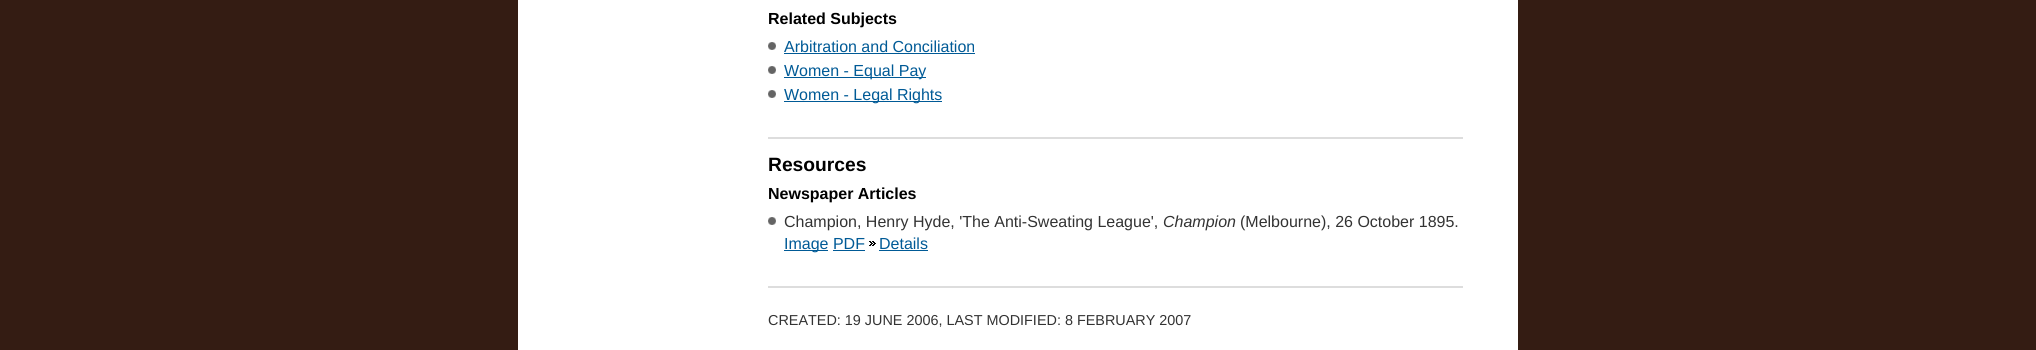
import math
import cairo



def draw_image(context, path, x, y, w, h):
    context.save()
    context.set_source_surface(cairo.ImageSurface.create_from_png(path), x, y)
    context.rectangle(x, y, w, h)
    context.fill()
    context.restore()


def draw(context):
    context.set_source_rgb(52 / 255, 28 / 255, 19 / 255)
    context.paint()
    context.set_source_rgb(1, 1, 1)
    context.rectangle(518, 0, 1000, 350)
    context.fill()
    context.set_source_rgb(221 / 255, 221 / 255, 221 / 255)
    context.rectangle(768, 137, 695, 2)
    context.fill()
    draw_image(context, "images/1.png", 768, 42, 8, 8)
    context.set_source_rgb(0, 90 / 255, 150 / 255)
    context.rectangle(784, 53, 191, 1)
    context.fill()
    draw_image(context, "images/1.png", 768, 66, 8, 8)
    context.rectangle(784, 77, 142, 1)
    context.fill()
    draw_image(context, "images/1.png", 768, 90, 8, 8)
    context.rectangle(784, 101, 158, 1)
    context.fill()
    context.set_source_rgb(221 / 255, 221 / 255, 221 / 255)
    context.rectangle(768, 286, 695, 2)
    context.fill()
    draw_image(context, "images/1.png", 768, 217, 8, 8)
    context.set_source_rgb(0, 90 / 255, 150 / 255)
    context.rectangle(784, 250, 44, 1)
    context.fill()
    context.rectangle(833, 250, 32, 1)
    context.fill()
    draw_image(context, "images/2.png", 869, 241, 7, 5)
    context.rectangle(879, 250, 49, 1)
    context.fill()
    context.select_font_face("Liberation Sans", cairo.FontSlant.NORMAL, cairo.FontWeight.BOLD)
    context.set_font_size(16)
    context.set_source_rgb(0, 0, 0)
    context.move_to(768, 24)
    context.show_text("Related Subjects")
    context.select_font_face("Liberation Sans")
    context.set_source_rgb(0, 90 / 255, 150 / 255)
    context.move_to(784, 52)
    context.show_text("Arbitration and Conciliation")
    context.move_to(784, 76)
    context.show_text("Women - Equal Pay")
    context.move_to(784, 100)
    context.show_text("Women - Legal Rights")
    context.select_font_face("Liberation Sans", cairo.FontSlant.NORMAL, cairo.FontWeight.BOLD)
    context.set_font_size(19.25)
    context.set_source_rgb(0, 0, 0)
    context.move_to(768, 171)
    context.show_text("Resources")
    context.set_font_size(16)
    context.move_to(768, 199)
    context.show_text("Newspaper Articles")
    context.select_font_face("Liberation Sans")
    context.set_source_rgb(51 / 255, 51 / 255, 51 / 255)
    context.move_to(784, 227)
    context.show_text("Champion, Henry Hyde, 'The Anti-Sweating League',")
    context.select_font_face("Liberation Sans", cairo.FontSlant.ITALIC)
    context.move_to(1163, 227)
    context.show_text("Champion")
    context.select_font_face("Liberation Sans")
    context.move_to(1240, 227)
    context.show_text("(Melbourne), 26 October 1895.")
    context.set_source_rgb(0, 90 / 255, 150 / 255)
    context.move_to(784, 249)
    context.show_text("Image PDF")
    context.move_to(879, 249)
    context.show_text("Details")
    context.set_font_size(14.4)
    context.set_source_rgb(51 / 255, 51 / 255, 51 / 255)
    context.move_to(768, 325)
    context.show_text("CREATED: 19 JUNE 2006, LAST MODIFIED: 8 FEBRUARY 2007")


surface = cairo.ImageSurface(cairo.Format.RGB24, 2036, 350)
context = cairo.Context(surface)
options = cairo.FontOptions()
options.set_hint_metrics(cairo.HintMetrics.OFF)
options.set_hint_style(cairo.HintStyle.NONE)
context.set_font_options(options)
context.set_miter_limit(4)
draw(context)
surface.write_to_png("out.png")
